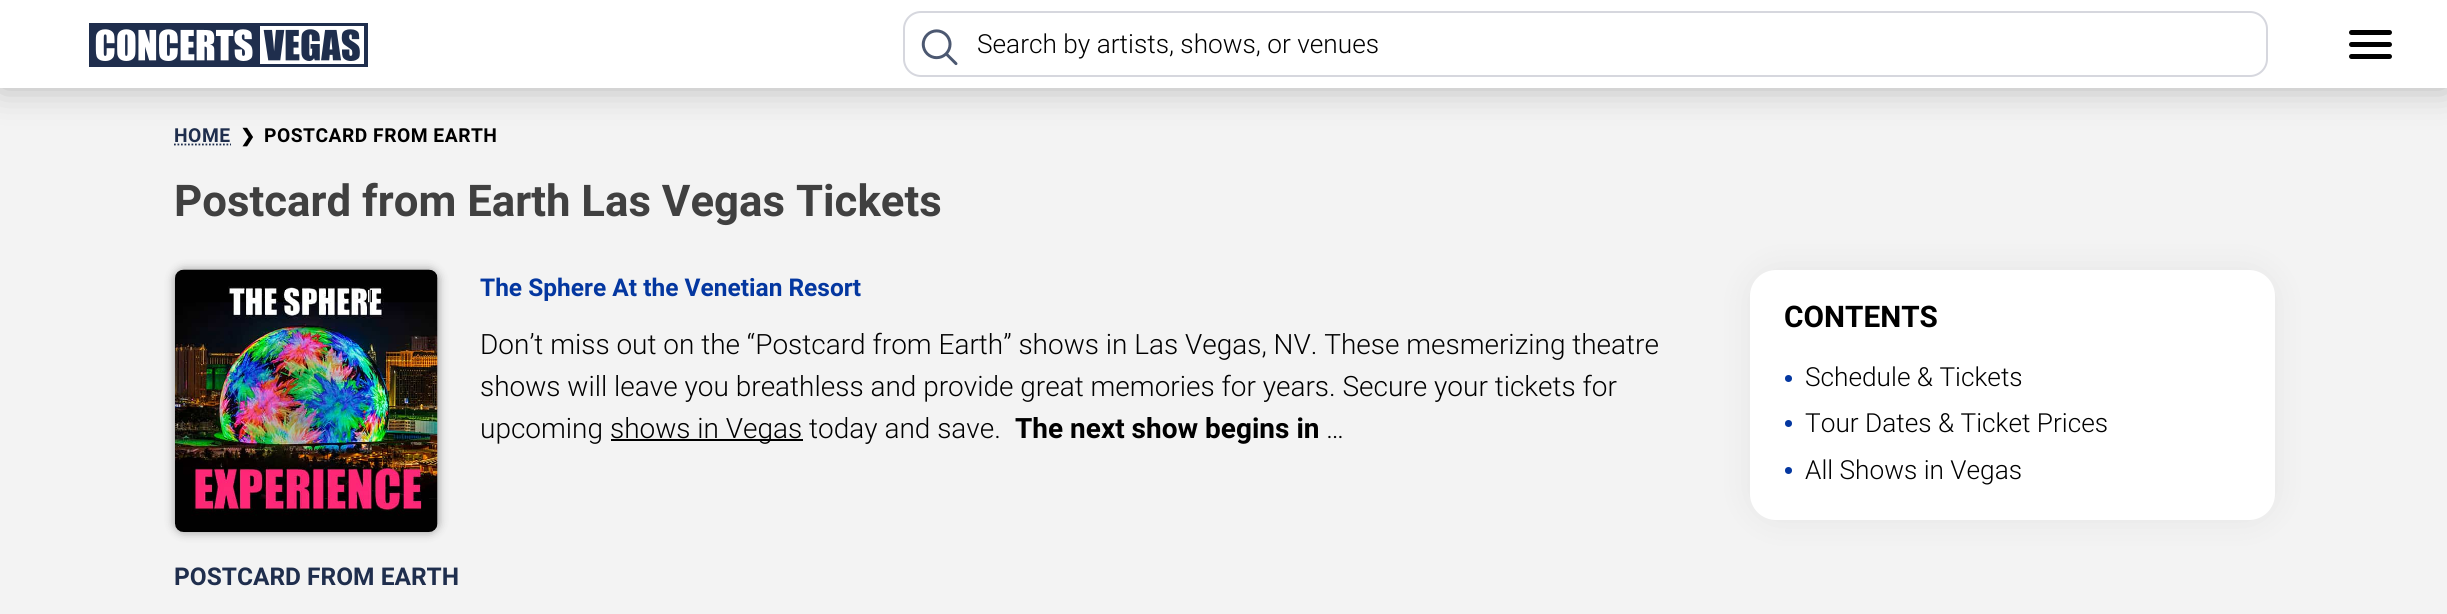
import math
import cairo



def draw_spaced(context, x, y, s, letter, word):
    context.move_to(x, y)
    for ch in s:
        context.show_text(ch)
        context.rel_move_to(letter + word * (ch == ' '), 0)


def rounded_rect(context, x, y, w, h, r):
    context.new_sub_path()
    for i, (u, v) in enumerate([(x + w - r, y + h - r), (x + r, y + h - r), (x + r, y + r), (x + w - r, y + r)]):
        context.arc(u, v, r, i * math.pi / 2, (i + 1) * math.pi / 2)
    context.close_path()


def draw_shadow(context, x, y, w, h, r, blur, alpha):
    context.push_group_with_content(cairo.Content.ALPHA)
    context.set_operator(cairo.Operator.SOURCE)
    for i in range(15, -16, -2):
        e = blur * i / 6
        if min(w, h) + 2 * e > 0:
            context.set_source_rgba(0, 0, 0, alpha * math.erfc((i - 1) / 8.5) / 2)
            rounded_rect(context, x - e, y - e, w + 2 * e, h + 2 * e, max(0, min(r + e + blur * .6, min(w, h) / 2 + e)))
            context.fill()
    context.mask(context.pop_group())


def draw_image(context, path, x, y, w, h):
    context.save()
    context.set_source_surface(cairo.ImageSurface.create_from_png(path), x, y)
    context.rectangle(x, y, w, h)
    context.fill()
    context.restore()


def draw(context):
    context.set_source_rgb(243 / 255, 243 / 255, 243 / 255)
    context.paint()
    context.set_source_rgb(0, 0, 0)
    draw_shadow(context, 0, 0, 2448, 88, 0, 17.5, 0.26)
    context.set_source_rgb(1, 1, 1)
    context.rectangle(0, 0, 2447, 88)
    context.fill()
    draw_image(context, "images/1.png", 89, 23, 279, 44)
    rounded_rect(context, 904, 12, 1363, 64, 17)
    context.set_source_rgb(214 / 255, 215 / 255, 222 / 255)
    context.stroke()
    draw_image(context, "images/2.png", 921, 29, 37, 37)
    context.set_source_rgb(0, 0, 0)
    rounded_rect(context, 2349, 30, 43, 5, 2.5)
    context.fill()
    rounded_rect(context, 2349, 42, 43, 5, 2.5)
    context.fill()
    rounded_rect(context, 2349, 54, 43, 5, 2.5)
    context.fill()
    context.new_path()
    context.move_to(174, 144.5)
    context.line_to(231, 144.5)
    context.set_source_rgb(31 / 255, 46 / 255, 77 / 255)
    context.set_line_width(1.8)
    context.set_dash([1.75, 1.75])
    context.stroke()
    context.set_source_rgb(0, 0, 0)
    draw_shadow(context, 175, 270, 263, 262, 9, 5, 0.38)
    draw_image(context, "images/3.png", 175, 269, 263, 263)
    context.set_source_rgb(0, 0, 0)
    context.rectangle(611, 439, 192, 2)
    context.fill()
    context.set_source_rgb(0, 0, 0)
    draw_shadow(context, 1750, 270, 525, 250, 26, 17.5, 0.06)
    context.set_source_rgb(1, 1, 1)
    rounded_rect(context, 1750, 270, 525, 250, 26)
    context.fill()
    context.set_source_rgb(4 / 255, 55 / 255, 160 / 255)
    context.arc(1788.5, 378.5, 3.5, 0, 2 * math.pi)
    context.fill()
    context.arc(1788.5, 423.5, 3.5, 0, 2 * math.pi)
    context.fill()
    context.arc(1788.5, 470.5, 3.5, 0, 2 * math.pi)
    context.fill()
    context.select_font_face("Roboto Light")
    context.set_font_size(26.25)
    context.set_source_rgb(0, 0, 0)
    context.move_to(977, 53)
    context.show_text("Search by artists, shows, or venues")
    context.select_font_face("Roboto", cairo.FontSlant.NORMAL, cairo.FontWeight.BOLD)
    context.set_font_size(19.25)
    context.set_source_rgb(31 / 255, 46 / 255, 77 / 255)
    draw_spaced(context, 174, 142, "HOME", 0.5, 0)
    context.select_font_face("DejaVu Sans", cairo.FontSlant.NORMAL, cairo.FontWeight.BOLD)
    context.set_font_size(18)
    context.set_source_rgb(0, 0, 0)
    draw_spaced(context, 240, 142, "❯", 0.5, 0)
    context.select_font_face("Roboto", cairo.FontSlant.NORMAL, cairo.FontWeight.BOLD)
    context.set_font_size(19.25)
    draw_spaced(context, 264, 142, "POSTCARD FROM EARTH", 0.5, 0)
    context.set_font_size(43.75)
    context.set_source_rgb(64 / 255, 64 / 255, 64 / 255)
    context.move_to(174, 216)
    context.show_text("Postcard from Earth Las Vegas Tickets")
    context.set_font_size(24.5)
    context.set_source_rgb(4 / 255, 55 / 255, 160 / 255)
    context.move_to(480, 296)
    context.show_text("The Sphere At the Venetian Resort")
    context.select_font_face("Roboto Light")
    context.set_font_size(28)
    context.set_source_rgb(0, 0, 0)
    context.move_to(480, 354)
    context.show_text("Don’t miss out on the “Postcard from Earth” shows in Las Vegas, NV. These mesmerizing theatre")
    context.move_to(480, 396)
    context.show_text("shows will leave you breathless and provide great memories for years. Secure your tickets for")
    context.move_to(480, 438)
    context.show_text("upcoming")
    context.move_to(610, 438)
    context.show_text("shows in Vegas today and save.")
    context.select_font_face("Roboto", cairo.FontSlant.NORMAL, cairo.FontWeight.BOLD)
    context.move_to(1015, 438)
    context.show_text("The next show begins in")
    context.select_font_face("Roboto Light")
    context.move_to(1326, 438)
    context.show_text("…")
    context.select_font_face("Roboto", cairo.FontSlant.NORMAL, cairo.FontWeight.BOLD)
    context.set_font_size(29.75)
    context.move_to(1784, 327)
    context.show_text("CONTENTS")
    context.select_font_face("Roboto Light")
    context.set_font_size(26.25)
    context.move_to(1805, 386)
    context.show_text("Schedule & Tickets")
    context.move_to(1805, 432)
    context.show_text("Tour Dates & Ticket Prices")
    context.move_to(1805, 479)
    context.show_text("All Shows in Vegas")
    context.select_font_face("Roboto", cairo.FontSlant.NORMAL, cairo.FontWeight.BOLD)
    context.set_font_size(24.5)
    context.set_source_rgb(31 / 255, 46 / 255, 77 / 255)
    context.move_to(174, 585)
    context.show_text("POSTCARD FROM EARTH")


surface = cairo.ImageSurface(cairo.Format.RGB24, 2447, 614)
context = cairo.Context(surface)
options = cairo.FontOptions()
options.set_hint_metrics(cairo.HintMetrics.OFF)
options.set_hint_style(cairo.HintStyle.NONE)
context.set_font_options(options)
context.set_miter_limit(4)
draw(context)
surface.write_to_png("out.png")
